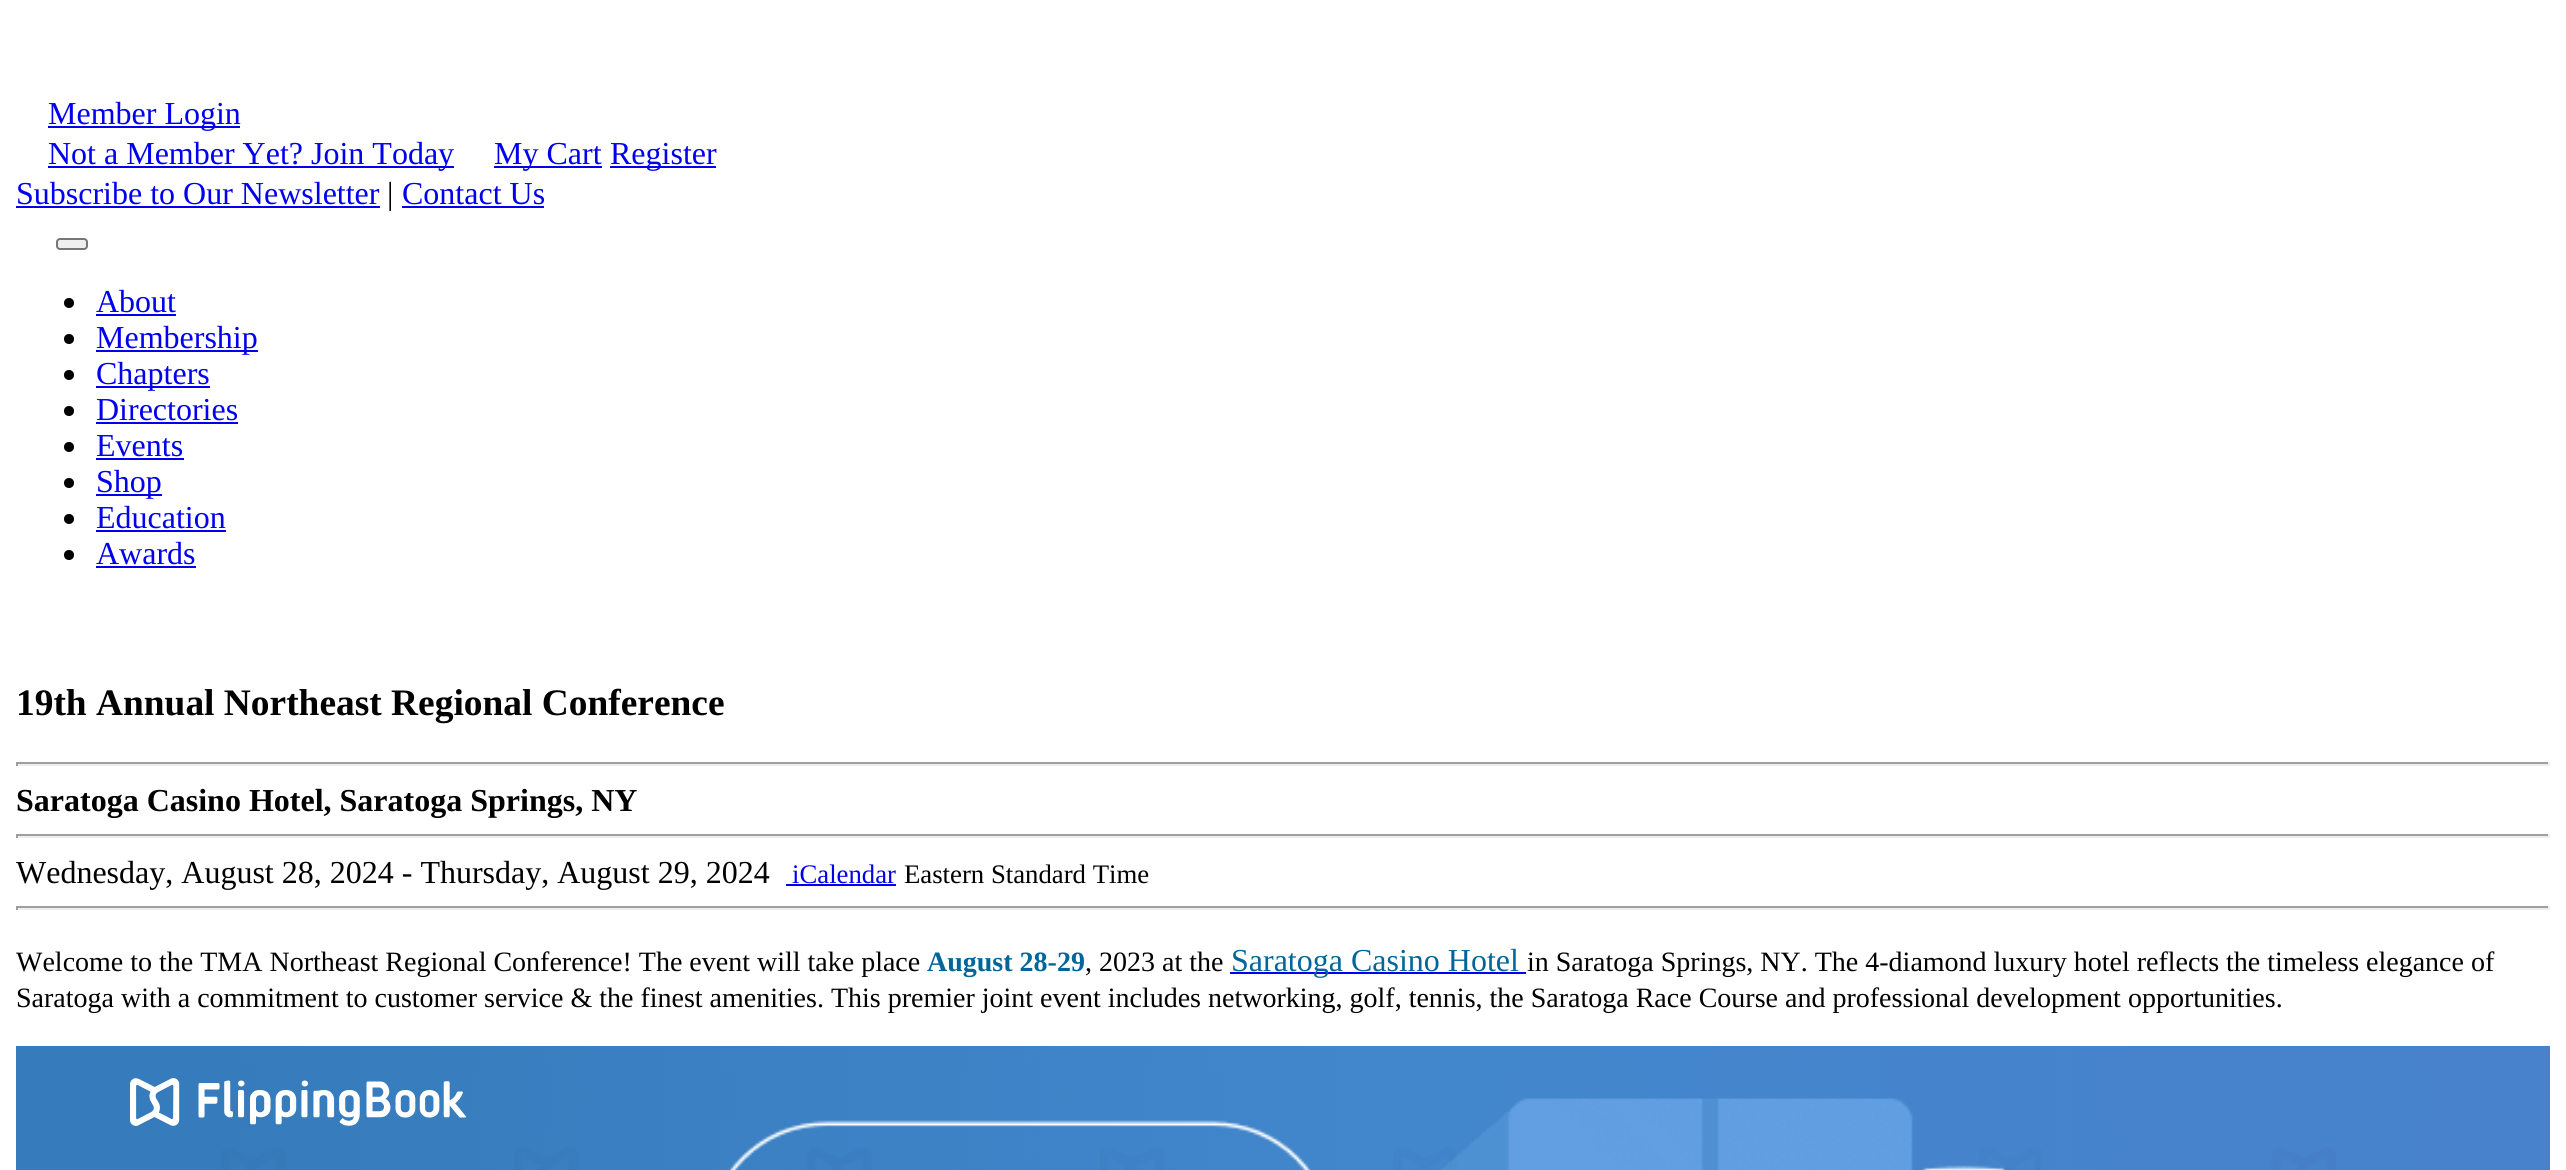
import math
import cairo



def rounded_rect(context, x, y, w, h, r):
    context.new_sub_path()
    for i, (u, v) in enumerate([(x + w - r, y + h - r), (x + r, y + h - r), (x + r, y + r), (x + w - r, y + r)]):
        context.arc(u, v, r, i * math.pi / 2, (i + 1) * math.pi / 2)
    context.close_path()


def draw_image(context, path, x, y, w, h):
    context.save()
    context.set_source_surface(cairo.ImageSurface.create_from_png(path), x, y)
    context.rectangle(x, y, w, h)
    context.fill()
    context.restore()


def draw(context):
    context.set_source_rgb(1, 1, 1)
    context.paint()
    context.set_source_rgb(0, 0, 238 / 255)
    context.rectangle(48, 126, 192, 2)
    context.fill()
    context.rectangle(48, 166, 406, 2)
    context.fill()
    context.rectangle(494, 166, 108, 2)
    context.fill()
    context.rectangle(610, 166, 106, 2)
    context.fill()
    context.rectangle(16, 206, 364, 2)
    context.fill()
    context.rectangle(402, 206, 142, 2)
    context.fill()
    context.set_source_rgb(239 / 255, 239 / 255, 239 / 255)
    rounded_rect(context, 57, 239, 30, 10, 3)
    context.fill_preserve()
    context.set_source_rgb(118 / 255, 118 / 255, 118 / 255)
    context.stroke()
    context.set_source_rgb(0, 0, 0)
    context.arc(69, 303, 5, 0, 2 * math.pi)
    context.fill()
    context.set_source_rgb(0, 0, 238 / 255)
    context.rectangle(96, 314, 80, 2)
    context.fill()
    context.set_source_rgb(0, 0, 0)
    context.arc(69, 339, 5, 0, 2 * math.pi)
    context.fill()
    context.set_source_rgb(0, 0, 238 / 255)
    context.rectangle(96, 350, 162, 2)
    context.fill()
    context.set_source_rgb(0, 0, 0)
    context.arc(69, 375, 5, 0, 2 * math.pi)
    context.fill()
    context.set_source_rgb(0, 0, 238 / 255)
    context.rectangle(96, 386, 114, 2)
    context.fill()
    context.set_source_rgb(0, 0, 0)
    context.arc(69, 411, 5, 0, 2 * math.pi)
    context.fill()
    context.set_source_rgb(0, 0, 238 / 255)
    context.rectangle(96, 422, 142, 2)
    context.fill()
    context.set_source_rgb(0, 0, 0)
    context.arc(69, 447, 5, 0, 2 * math.pi)
    context.fill()
    context.set_source_rgb(0, 0, 238 / 255)
    context.rectangle(96, 458, 88, 2)
    context.fill()
    context.set_source_rgb(0, 0, 0)
    context.arc(69, 483, 5, 0, 2 * math.pi)
    context.fill()
    context.set_source_rgb(0, 0, 238 / 255)
    context.rectangle(96, 494, 66, 2)
    context.fill()
    context.set_source_rgb(0, 0, 0)
    context.arc(69, 519, 5, 0, 2 * math.pi)
    context.fill()
    context.set_source_rgb(0, 0, 238 / 255)
    context.rectangle(96, 530, 130, 2)
    context.fill()
    context.set_source_rgb(0, 0, 0)
    context.arc(69, 555, 5, 0, 2 * math.pi)
    context.fill()
    context.set_source_rgb(0, 0, 238 / 255)
    context.rectangle(96, 566, 100, 2)
    context.fill()
    context.set_source_rgb(159 / 255, 159 / 255, 159 / 255)
    context.rectangle(16, 762, 2534, 2)
    context.fill()
    context.set_source_rgb(238 / 255, 238 / 255, 238 / 255)
    context.rectangle(2548, 762, 2, 4)
    context.fill()
    context.rectangle(16, 764, 2534, 2)
    context.fill()
    context.set_source_rgb(159 / 255, 159 / 255, 159 / 255)
    context.rectangle(16, 762, 2, 4)
    context.fill()
    context.rectangle(16, 834, 2534, 2)
    context.fill()
    context.set_source_rgb(238 / 255, 238 / 255, 238 / 255)
    context.rectangle(2548, 834, 2, 4)
    context.fill()
    context.rectangle(16, 836, 2534, 2)
    context.fill()
    context.set_source_rgb(159 / 255, 159 / 255, 159 / 255)
    context.rectangle(16, 834, 2, 4)
    context.fill()
    context.set_source_rgb(0, 0, 238 / 255)
    context.rectangle(786, 884, 110, 2)
    context.fill()
    context.set_source_rgb(159 / 255, 159 / 255, 159 / 255)
    context.rectangle(16, 906, 2534, 2)
    context.fill()
    context.set_source_rgb(238 / 255, 238 / 255, 238 / 255)
    context.rectangle(2548, 906, 2, 4)
    context.fill()
    context.rectangle(16, 908, 2534, 2)
    context.fill()
    context.set_source_rgb(159 / 255, 159 / 255, 159 / 255)
    context.rectangle(16, 906, 2, 4)
    context.fill()
    context.set_source_rgb(0, 0, 238 / 255)
    context.rectangle(1230, 972, 296, 2)
    context.fill()
    draw_image(context, "images/1.png", 16, 1046, 2534, 124)
    context.select_font_face("Liberation Serif")
    context.set_font_size(32)
    context.move_to(48, 124)
    context.show_text("Member Login")
    context.move_to(48, 164)
    context.show_text("Not a Member Yet? Join Today")
    context.move_to(494, 164)
    context.show_text("My Cart")
    context.move_to(610, 164)
    context.show_text("Register")
    context.move_to(16, 204)
    context.show_text("Subscribe to Our Newsletter")
    context.set_source_rgb(0, 0, 0)
    context.move_to(387, 204)
    context.show_text("|")
    context.set_source_rgb(0, 0, 238 / 255)
    context.move_to(402, 204)
    context.show_text("Contact Us")
    context.move_to(96, 312)
    context.show_text("About")
    context.move_to(96, 348)
    context.show_text("Membership")
    context.move_to(96, 384)
    context.show_text("Chapters")
    context.move_to(96, 420)
    context.show_text("Directories")
    context.move_to(96, 456)
    context.show_text("Events")
    context.move_to(96, 492)
    context.show_text("Shop")
    context.move_to(96, 528)
    context.show_text("Education")
    context.move_to(96, 564)
    context.show_text("Awards")
    context.select_font_face("Liberation Serif", cairo.FontSlant.NORMAL, cairo.FontWeight.BOLD)
    context.set_font_size(37.4)
    context.set_source_rgb(0, 0, 0)
    context.move_to(16, 715)
    context.show_text("19th Annual Northeast Regional Conference")
    context.set_font_size(32)
    context.move_to(16, 811)
    context.show_text("Saratoga Casino Hotel, Saratoga Springs, NY")
    context.select_font_face("Liberation Serif")
    context.move_to(16, 883)
    context.show_text("Wednesday, August 28, 2024 - Thursday, August 29, 2024")
    context.set_font_size(26.75)
    context.set_source_rgb(0, 0, 238 / 255)
    context.move_to(792, 883)
    context.show_text("iCalendar")
    context.set_source_rgb(0, 0, 0)
    context.move_to(904, 883)
    context.show_text("Eastern Standard Time")
    context.set_font_size(28)
    context.move_to(16, 971)
    context.show_text("Welcome to the TMA Northeast Regional Conference! The event will take place")
    context.select_font_face("Liberation Serif", cairo.FontSlant.NORMAL, cairo.FontWeight.BOLD)
    context.set_source_rgb(0, 102 / 255, 153 / 255)
    context.move_to(927, 971)
    context.show_text("August 28-29")
    context.select_font_face("Liberation Serif")
    context.set_source_rgb(0, 0, 0)
    context.move_to(1085, 971)
    context.show_text(", 2023 at the")
    context.set_font_size(32)
    context.set_source_rgb(0, 102 / 255, 153 / 255)
    context.move_to(1231, 971)
    context.show_text("Saratoga Casino Hotel")
    context.set_font_size(28)
    context.set_source_rgb(0, 0, 0)
    context.move_to(1527, 971)
    context.show_text("in Saratoga Springs, NY. The 4-diamond luxury hotel reflects the timeless elegance of")
    context.move_to(16, 1007)
    context.show_text("Saratoga with a commitment to customer service & the finest amenities. This premier joint event includes networking, golf, tennis, the Saratoga Race Course and professional development opportunities.")


surface = cairo.ImageSurface(cairo.Format.RGB24, 2566, 1170)
context = cairo.Context(surface)
options = cairo.FontOptions()
options.set_hint_metrics(cairo.HintMetrics.OFF)
options.set_hint_style(cairo.HintStyle.NONE)
context.set_font_options(options)
context.set_miter_limit(4)
draw(context)
surface.write_to_png("out.png")
